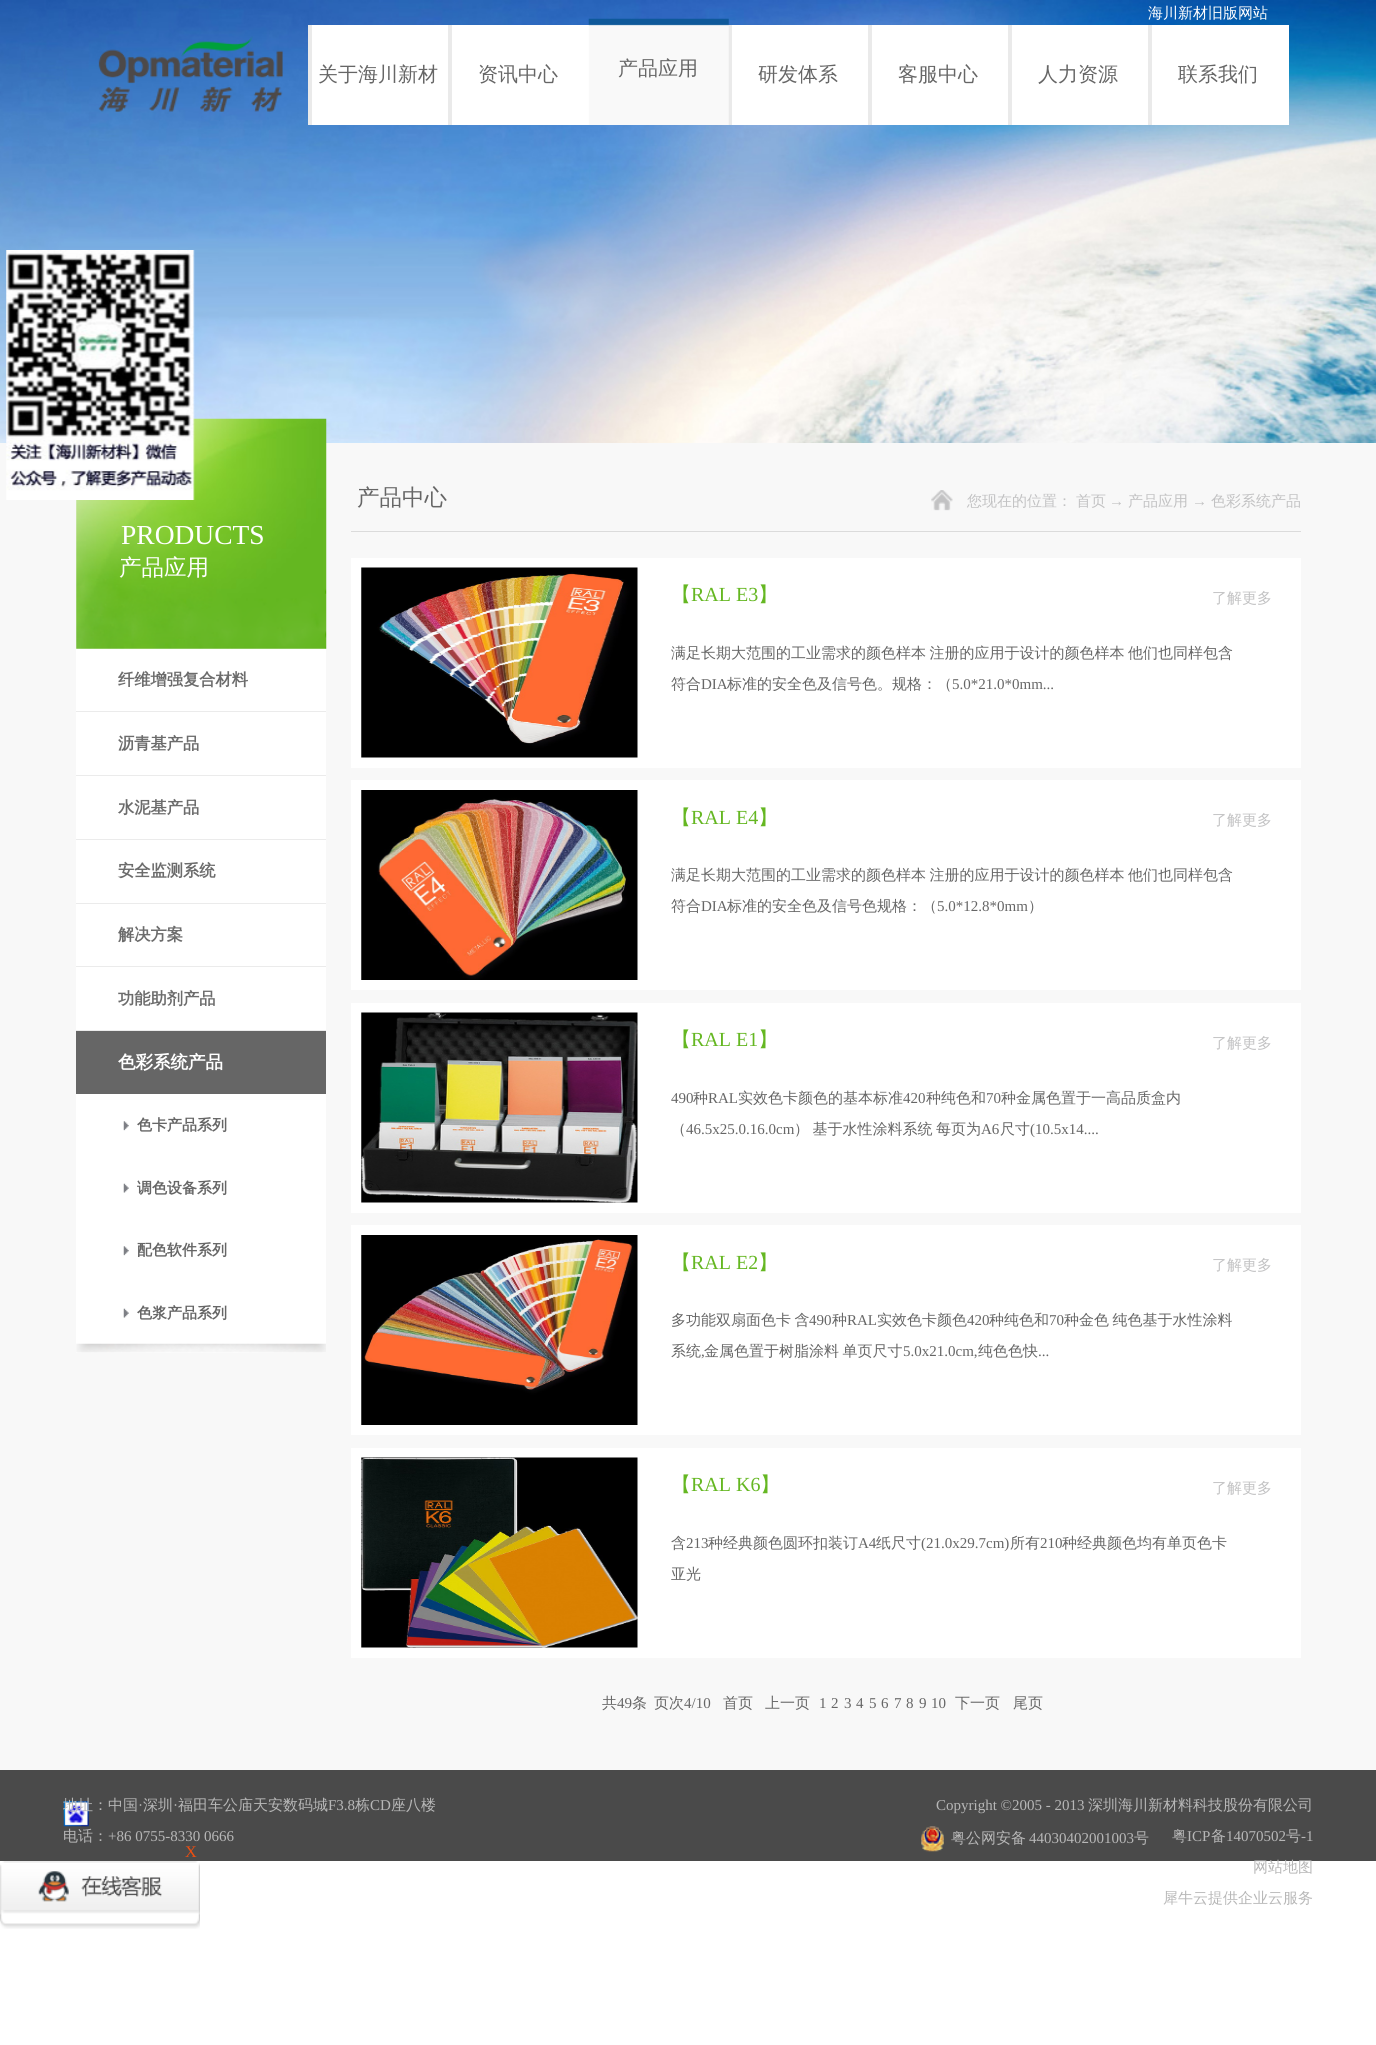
import math
import cairo



def draw_spaced(context, x, y, s, letter, word):
    context.move_to(x, y)
    for ch in s:
        context.show_text(ch)
        context.rel_move_to(letter + word * (ch == ' '), 0)


def draw_image(context, path, x, y, w, h):
    context.save()
    context.set_source_surface(cairo.ImageSurface.create_from_png(path), x, y)
    context.rectangle(x, y, w, h)
    context.fill()
    context.restore()


def draw(context):
    context.set_source_rgb(1, 1, 1)
    context.paint()
    draw_image(context, "images/1.png", 0, 0, 1376, 443)
    draw_image(context, "images/2.png", 98, 36, 185, 76)
    context.set_source_rgb(1, 1, 1)
    context.rectangle(312, 25, 136, 100)
    context.fill()
    context.set_source_rgb(234 / 255, 234 / 255, 234 / 255)
    context.rectangle(308, 25, 4, 100)
    context.fill()
    context.set_source_rgb(1, 1, 1)
    context.rectangle(452, 25, 137, 100)
    context.fill()
    context.set_source_rgb(234 / 255, 234 / 255, 234 / 255)
    context.rectangle(448, 25, 4, 100)
    context.fill()
    context.rectangle(728, 25, 4, 100)
    context.fill()
    draw_image(context, "images/3.png", 588, 18, 141, 107)
    context.set_source_rgb(1, 1, 1)
    context.rectangle(732, 25, 136, 100)
    context.fill()
    context.rectangle(872, 25, 136, 100)
    context.fill()
    context.set_source_rgb(234 / 255, 234 / 255, 234 / 255)
    context.rectangle(868, 25, 4, 100)
    context.fill()
    context.set_source_rgb(1, 1, 1)
    context.rectangle(1012, 25, 136, 100)
    context.fill()
    context.set_source_rgb(234 / 255, 234 / 255, 234 / 255)
    context.rectangle(1008, 25, 4, 100)
    context.fill()
    context.set_source_rgb(1, 1, 1)
    context.rectangle(1152, 25, 137, 100)
    context.fill()
    context.set_source_rgb(234 / 255, 234 / 255, 234 / 255)
    context.rectangle(1148, 25, 4, 100)
    context.fill()
    context.set_source_rgb(248 / 255, 248 / 255, 248 / 255)
    context.rectangle(0, 443, 1376, 1327)
    context.fill()
    draw_image(context, "images/4.png", 76, 418, 251, 231)
    context.set_source_rgb(1, 1, 1)
    context.rectangle(76, 649, 250, 704)
    context.fill()
    draw_image(context, "images/5.png", 76, 1343, 250, 10)
    context.set_source_rgb(235 / 255, 235 / 255, 235 / 255)
    context.rectangle(76, 711, 250, 1)
    context.fill()
    context.rectangle(76, 775, 250, 1)
    context.fill()
    context.rectangle(76, 839, 250, 1)
    context.fill()
    context.rectangle(76, 903, 250, 1)
    context.fill()
    context.rectangle(76, 966, 250, 1)
    context.fill()
    context.rectangle(76, 1030, 250, 1)
    context.fill()
    context.set_source_rgb(102 / 255, 102 / 255, 102 / 255)
    context.rectangle(76, 1031, 250, 63)
    context.fill()
    draw_image(context, "images/6.png", 123, 1121, 6, 10)
    draw_image(context, "images/7.png", 123, 1183, 6, 10)
    draw_image(context, "images/6.png", 123, 1246, 6, 10)
    draw_image(context, "images/7.png", 123, 1308, 6, 10)
    context.set_source_rgb(219 / 255, 219 / 255, 219 / 255)
    context.rectangle(351, 531, 950, 1)
    context.fill()
    draw_image(context, "images/8.png", 931, 490, 22, 21)
    context.set_source_rgb(1, 1, 1)
    context.rectangle(351, 558, 950, 210)
    context.fill()
    draw_image(context, "images/9.png", 361, 567, 277, 191)
    context.rectangle(351, 780, 950, 210)
    context.fill()
    draw_image(context, "images/10.png", 361, 790, 277, 190)
    context.rectangle(351, 1003, 950, 210)
    context.fill()
    draw_image(context, "images/11.png", 361, 1012, 277, 191)
    context.rectangle(351, 1225, 950, 210)
    context.fill()
    draw_image(context, "images/12.png", 361, 1235, 277, 190)
    context.rectangle(351, 1448, 950, 210)
    context.fill()
    draw_image(context, "images/13.png", 361, 1457, 277, 191)
    context.set_source_rgb(74 / 255, 74 / 255, 74 / 255)
    context.rectangle(0, 1770, 1376, 91)
    context.fill()
    draw_image(context, "images/14.png", 921, 1826, 23, 26)
    draw_image(context, "images/15.png", 63, 1801, 26, 26)
    draw_image(context, "images/16.png", 0, 1861, 200, 53)
    draw_image(context, "images/17.png", 0, 1913, 200, 16)
    draw_image(context, "images/18.png", 6, 250, 189, 250)
    context.select_font_face("WenQuanYi Zen Hei Medium")
    context.set_font_size(15)
    context.set_source_rgb(1, 1, 1)
    context.move_to(1148, 18)
    context.show_text("海川新材旧版网站")
    context.set_font_size(20)
    context.set_source_rgb(102 / 255, 102 / 255, 102 / 255)
    context.move_to(318, 81)
    context.show_text("关于海川新材")
    context.move_to(478, 81)
    context.show_text("资讯中心")
    context.move_to(618, 75)
    context.show_text("产品应用")
    context.move_to(758, 81)
    context.show_text("研发体系")
    context.move_to(898, 81)
    context.show_text("客服中心")
    context.move_to(1038, 81)
    context.show_text("人力资源")
    context.move_to(1178, 81)
    context.show_text("联系我们")
    context.select_font_face("Liberation Serif")
    context.set_font_size(27.5)
    context.set_source_rgb(1, 1, 1)
    context.move_to(121, 544)
    context.show_text("PRODUCTS")
    context.select_font_face("WenQuanYi Zen Hei Medium")
    context.set_font_size(22.5)
    context.move_to(119, 575)
    context.show_text("产品应用")
    context.select_font_face("WenQuanYi Zen Hei", cairo.FontSlant.NORMAL, cairo.FontWeight.BOLD)
    context.set_font_size(16.25)
    context.set_source_rgb(108 / 255, 108 / 255, 108 / 255)
    context.move_to(118, 685)
    context.show_text("纤维增强复合材料")
    context.move_to(118, 749)
    context.show_text("沥青基产品")
    context.move_to(118, 813)
    context.show_text("水泥基产品")
    context.move_to(118, 876)
    context.show_text("安全监测系统")
    context.move_to(118, 940)
    context.show_text("解决方案")
    context.move_to(118, 1004)
    context.show_text("功能助剂产品")
    context.set_font_size(17.5)
    context.set_source_rgb(1, 1, 1)
    context.move_to(118, 1068)
    context.show_text("色彩系统产品")
    context.set_font_size(15)
    context.set_source_rgb(102 / 255, 102 / 255, 102 / 255)
    context.move_to(137, 1130)
    context.show_text("色卡产品系列")
    context.move_to(137, 1193)
    context.show_text("调色设备系列")
    context.move_to(137, 1255)
    context.show_text("配色软件系列")
    context.move_to(137, 1318)
    context.show_text("色浆产品系列")
    context.select_font_face("WenQuanYi Zen Hei Medium")
    context.set_font_size(22.5)
    context.move_to(357, 505)
    context.show_text("产品中心")
    context.set_font_size(15)
    context.set_source_rgb(194 / 255, 194 / 255, 195 / 255)
    context.move_to(967, 506)
    context.show_text("您现在的位置：")
    context.move_to(1076, 506)
    context.show_text("首页")
    context.select_font_face("Liberation Serif")
    context.move_to(1109, 506)
    context.show_text("→")
    context.select_font_face("WenQuanYi Zen Hei Medium")
    context.move_to(1128, 506)
    context.show_text("产品应用")
    context.select_font_face("Liberation Serif")
    context.move_to(1192, 506)
    context.show_text("→")
    context.select_font_face("WenQuanYi Zen Hei Medium")
    context.move_to(1211, 506)
    context.show_text("色彩系统产品")
    context.set_font_size(20)
    context.set_source_rgb(101 / 255, 183 / 255, 34 / 255)
    context.move_to(671, 601)
    context.show_text("【")
    context.select_font_face("Liberation Serif")
    context.move_to(691, 601)
    context.show_text("RAL E3")
    context.select_font_face("WenQuanYi Zen Hei Medium")
    context.move_to(758, 601)
    context.show_text("】")
    context.set_font_size(15)
    context.set_source_rgb(194 / 255, 194 / 255, 195 / 255)
    context.move_to(1212, 603)
    context.show_text("了解更多")
    context.set_source_rgb(102 / 255, 102 / 255, 102 / 255)
    draw_spaced(context, 671, 658, "满足长期大范围的工业需求的颜色样本 注册的应用于设计的颜色样本 他们也同样包含", 0, -1)
    context.move_to(671, 689)
    context.show_text("符合")
    context.select_font_face("Liberation Serif")
    context.move_to(701, 689)
    context.show_text("DIA")
    context.select_font_face("WenQuanYi Zen Hei Medium")
    context.move_to(727, 689)
    context.show_text("标准的安全色及信号色。规格：（")
    context.select_font_face("Liberation Serif")
    context.move_to(952, 689)
    context.show_text("5.0*21.0*0mm...")
    context.select_font_face("WenQuanYi Zen Hei Medium")
    context.set_font_size(20)
    context.set_source_rgb(101 / 255, 183 / 255, 34 / 255)
    context.move_to(671, 824)
    context.show_text("【")
    context.select_font_face("Liberation Serif")
    context.move_to(691, 824)
    context.show_text("RAL E4")
    context.select_font_face("WenQuanYi Zen Hei Medium")
    context.move_to(758, 824)
    context.show_text("】")
    context.set_font_size(15)
    context.set_source_rgb(194 / 255, 194 / 255, 195 / 255)
    context.move_to(1212, 825)
    context.show_text("了解更多")
    context.set_source_rgb(102 / 255, 102 / 255, 102 / 255)
    draw_spaced(context, 671, 880, "满足长期大范围的工业需求的颜色样本 注册的应用于设计的颜色样本 他们也同样包含", 0, -1)
    context.move_to(671, 911)
    context.show_text("符合")
    context.select_font_face("Liberation Serif")
    context.move_to(701, 911)
    context.show_text("DIA")
    context.select_font_face("WenQuanYi Zen Hei Medium")
    context.move_to(727, 911)
    context.show_text("标准的安全色及信号色规格：（")
    context.select_font_face("Liberation Serif")
    context.move_to(937, 911)
    context.show_text("5.0*12.8*0mm")
    context.select_font_face("WenQuanYi Zen Hei Medium")
    context.move_to(1028, 911)
    context.show_text("）")
    context.set_font_size(20)
    context.set_source_rgb(101 / 255, 183 / 255, 34 / 255)
    context.move_to(671, 1046)
    context.show_text("【")
    context.select_font_face("Liberation Serif")
    context.move_to(691, 1046)
    context.show_text("RAL E1")
    context.select_font_face("WenQuanYi Zen Hei Medium")
    context.move_to(758, 1046)
    context.show_text("】")
    context.set_font_size(15)
    context.set_source_rgb(194 / 255, 194 / 255, 195 / 255)
    context.move_to(1212, 1048)
    context.show_text("了解更多")
    context.select_font_face("Liberation Serif")
    context.set_source_rgb(102 / 255, 102 / 255, 102 / 255)
    context.move_to(671, 1103)
    context.show_text("490")
    context.select_font_face("WenQuanYi Zen Hei Medium")
    context.move_to(693, 1103)
    context.show_text("种")
    context.select_font_face("Liberation Serif")
    context.move_to(708, 1103)
    context.show_text("RAL")
    context.select_font_face("WenQuanYi Zen Hei Medium")
    context.move_to(738, 1103)
    context.show_text("实效色卡颜色的基本标准")
    context.select_font_face("Liberation Serif")
    context.move_to(903, 1103)
    context.show_text("420")
    context.select_font_face("WenQuanYi Zen Hei Medium")
    context.move_to(926, 1103)
    context.show_text("种纯色和")
    context.select_font_face("Liberation Serif")
    context.move_to(986, 1103)
    context.show_text("70")
    context.select_font_face("WenQuanYi Zen Hei Medium")
    context.move_to(1001, 1103)
    context.show_text("种金属色置于一高品质盒内")
    context.move_to(671, 1134)
    context.show_text("（")
    context.select_font_face("Liberation Serif")
    context.move_to(686, 1134)
    context.show_text("46.5x25.0.16.0cm")
    context.select_font_face("WenQuanYi Zen Hei Medium")
    draw_spaced(context, 794, 1134, "） 基于水性涂料系统 每页为", 0, -1)
    context.select_font_face("Liberation Serif")
    context.move_to(981, 1134)
    context.show_text("A6")
    context.select_font_face("WenQuanYi Zen Hei Medium")
    context.move_to(1000, 1134)
    context.show_text("尺寸")
    context.select_font_face("Liberation Serif")
    context.move_to(1030, 1134)
    context.show_text("(10.5x14....")
    context.select_font_face("WenQuanYi Zen Hei Medium")
    context.set_font_size(20)
    context.set_source_rgb(101 / 255, 183 / 255, 34 / 255)
    context.move_to(671, 1269)
    context.show_text("【")
    context.select_font_face("Liberation Serif")
    context.move_to(691, 1269)
    context.show_text("RAL E2")
    context.select_font_face("WenQuanYi Zen Hei Medium")
    context.move_to(758, 1269)
    context.show_text("】")
    context.set_font_size(15)
    context.set_source_rgb(194 / 255, 194 / 255, 195 / 255)
    context.move_to(1212, 1270)
    context.show_text("了解更多")
    context.set_source_rgb(102 / 255, 102 / 255, 102 / 255)
    draw_spaced(context, 671, 1325, "多功能双扇面色卡 含", 0, -1)
    context.select_font_face("Liberation Serif")
    context.move_to(809, 1325)
    context.show_text("490")
    context.select_font_face("WenQuanYi Zen Hei Medium")
    context.move_to(832, 1325)
    context.show_text("种")
    context.select_font_face("Liberation Serif")
    context.move_to(847, 1325)
    context.show_text("RAL")
    context.select_font_face("WenQuanYi Zen Hei Medium")
    context.move_to(877, 1325)
    context.show_text("实效色卡颜色")
    context.select_font_face("Liberation Serif")
    context.move_to(967, 1325)
    context.show_text("420")
    context.select_font_face("WenQuanYi Zen Hei Medium")
    context.move_to(989, 1325)
    context.show_text("种纯色和")
    context.select_font_face("Liberation Serif")
    context.move_to(1049, 1325)
    context.show_text("70")
    context.select_font_face("WenQuanYi Zen Hei Medium")
    draw_spaced(context, 1064, 1325, "种金色 纯色基于水性涂料", 0, -1)
    context.move_to(671, 1356)
    context.show_text("系统")
    context.select_font_face("Liberation Serif")
    context.move_to(701, 1356)
    context.show_text(",")
    context.select_font_face("WenQuanYi Zen Hei Medium")
    draw_spaced(context, 704, 1356, "金属色置于树脂涂料 单页尺寸", 0, -1)
    context.select_font_face("Liberation Serif")
    context.move_to(903, 1356)
    context.show_text("5.0x21.0cm,")
    context.select_font_face("WenQuanYi Zen Hei Medium")
    context.move_to(978, 1356)
    context.show_text("纯色色快")
    context.select_font_face("Liberation Serif")
    context.move_to(1038, 1356)
    context.show_text("...")
    context.select_font_face("WenQuanYi Zen Hei Medium")
    context.set_font_size(20)
    context.set_source_rgb(101 / 255, 183 / 255, 34 / 255)
    context.move_to(671, 1491)
    context.show_text("【")
    context.select_font_face("Liberation Serif")
    context.move_to(691, 1491)
    context.show_text("RAL K6")
    context.select_font_face("WenQuanYi Zen Hei Medium")
    context.move_to(760, 1491)
    context.show_text("】")
    context.set_font_size(15)
    context.set_source_rgb(194 / 255, 194 / 255, 195 / 255)
    context.move_to(1212, 1493)
    context.show_text("了解更多")
    context.set_source_rgb(102 / 255, 102 / 255, 102 / 255)
    context.move_to(671, 1548)
    context.show_text("含")
    context.select_font_face("Liberation Serif")
    context.move_to(686, 1548)
    context.show_text("213")
    context.select_font_face("WenQuanYi Zen Hei Medium")
    context.move_to(708, 1548)
    context.show_text("种经典颜色圆环扣装订")
    context.select_font_face("Liberation Serif")
    context.move_to(858, 1548)
    context.show_text("A4")
    context.select_font_face("WenQuanYi Zen Hei Medium")
    context.move_to(876, 1548)
    context.show_text("纸尺寸")
    context.select_font_face("Liberation Serif")
    context.move_to(921, 1548)
    context.show_text("(21.0x29.7cm)")
    context.select_font_face("WenQuanYi Zen Hei Medium")
    context.move_to(1010, 1548)
    context.show_text("所有")
    context.select_font_face("Liberation Serif")
    context.move_to(1040, 1548)
    context.show_text("210")
    context.select_font_face("WenQuanYi Zen Hei Medium")
    context.move_to(1062, 1548)
    context.show_text("种经典颜色均有单页色卡")
    context.move_to(671, 1579)
    context.show_text("亚光")
    context.move_to(602, 1708)
    context.show_text("共")
    context.select_font_face("Liberation Serif")
    context.move_to(617, 1708)
    context.show_text("49")
    context.select_font_face("WenQuanYi Zen Hei Medium")
    context.move_to(632, 1708)
    context.show_text("条")
    context.move_to(654, 1708)
    context.show_text("页次")
    context.select_font_face("Liberation Serif")
    context.move_to(684, 1708)
    context.show_text("4/10")
    context.select_font_face("WenQuanYi Zen Hei Medium")
    context.move_to(723, 1708)
    context.show_text("首页")
    context.move_to(765, 1708)
    context.show_text("上一页")
    context.select_font_face("Liberation Serif")
    context.move_to(819, 1708)
    context.show_text("1")
    context.move_to(831, 1708)
    context.show_text("2")
    context.move_to(844, 1708)
    context.show_text("3")
    context.move_to(856, 1708)
    context.show_text("4")
    context.move_to(869, 1708)
    context.show_text("5")
    context.move_to(881, 1708)
    context.show_text("6")
    context.move_to(894, 1708)
    context.show_text("7")
    context.move_to(906, 1708)
    context.show_text("8")
    context.move_to(919, 1708)
    context.show_text("9")
    context.move_to(931, 1708)
    context.show_text("10")
    context.select_font_face("WenQuanYi Zen Hei Medium")
    context.move_to(955, 1708)
    context.show_text("下一页")
    context.move_to(1013, 1708)
    context.show_text("尾页")
    context.set_source_rgb(183 / 255, 183 / 255, 183 / 255)
    context.move_to(63, 1810)
    context.show_text("地址：中国")
    context.select_font_face("Liberation Serif")
    context.move_to(138, 1810)
    context.show_text("·")
    context.select_font_face("WenQuanYi Zen Hei Medium")
    context.move_to(143, 1810)
    context.show_text("深圳")
    context.select_font_face("Liberation Serif")
    context.move_to(173, 1810)
    context.show_text("·")
    context.select_font_face("WenQuanYi Zen Hei Medium")
    context.move_to(178, 1810)
    context.show_text("福田车公庙天安数码城")
    context.select_font_face("Liberation Serif")
    context.move_to(328, 1810)
    context.show_text("F3.8")
    context.select_font_face("WenQuanYi Zen Hei Medium")
    context.move_to(355, 1810)
    context.show_text("栋")
    context.select_font_face("Liberation Serif")
    context.move_to(370, 1810)
    context.show_text("CD")
    context.select_font_face("WenQuanYi Zen Hei Medium")
    context.move_to(391, 1810)
    context.show_text("座八楼")
    context.move_to(63, 1841)
    context.show_text("电话：")
    context.select_font_face("Liberation Serif")
    context.move_to(108, 1841)
    context.show_text("+86 0755-8330 0666")
    context.move_to(936, 1810)
    context.show_text("Copyright ©2005 - 2013")
    context.select_font_face("WenQuanYi Zen Hei Medium")
    context.move_to(1088, 1810)
    context.show_text("深圳海川新材料科技股份有限公司")
    context.move_to(951, 1843)
    context.show_text("粤公网安备")
    context.select_font_face("Liberation Serif")
    context.move_to(1029, 1843)
    context.show_text("44030402001003")
    context.select_font_face("WenQuanYi Zen Hei Medium")
    context.move_to(1134, 1843)
    context.show_text("号")
    context.move_to(1172, 1841)
    context.show_text("粤")
    context.select_font_face("Liberation Serif")
    context.move_to(1187, 1841)
    context.show_text("ICP")
    context.select_font_face("WenQuanYi Zen Hei Medium")
    context.move_to(1211, 1841)
    context.show_text("备")
    context.select_font_face("Liberation Serif")
    context.move_to(1226, 1841)
    context.show_text("14070502")
    context.select_font_face("WenQuanYi Zen Hei Medium")
    context.move_to(1286, 1841)
    context.show_text("号")
    context.select_font_face("Liberation Serif")
    context.move_to(1301, 1841)
    context.show_text("-1")
    context.select_font_face("WenQuanYi Zen Hei Medium")
    context.move_to(1253, 1872)
    context.show_text("网站地图")
    context.move_to(1163, 1903)
    context.show_text("犀牛云提供企业云服务")
    context.select_font_face("Liberation Serif")
    context.set_font_size(16.25)
    context.set_source_rgb(238 / 255, 78 / 255, 16 / 255)
    context.move_to(185, 1857)
    context.show_text("X")


surface = cairo.ImageSurface(cairo.Format.RGB24, 1376, 2045)
context = cairo.Context(surface)
options = cairo.FontOptions()
options.set_hint_metrics(cairo.HintMetrics.OFF)
options.set_hint_style(cairo.HintStyle.NONE)
context.set_font_options(options)
context.set_miter_limit(4)
draw(context)
surface.write_to_png("out.png")
